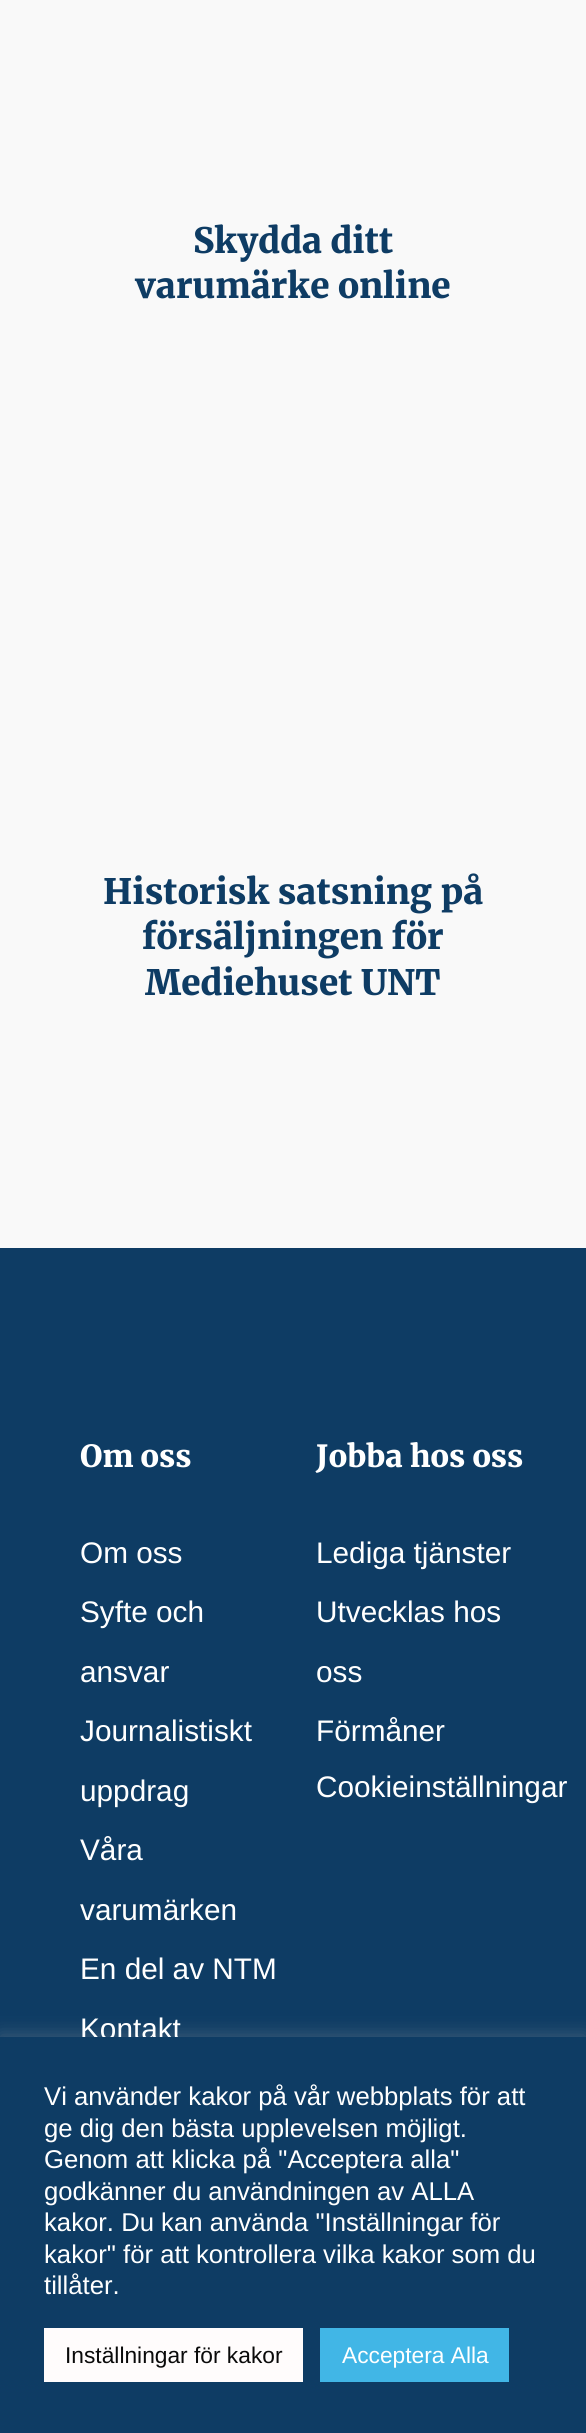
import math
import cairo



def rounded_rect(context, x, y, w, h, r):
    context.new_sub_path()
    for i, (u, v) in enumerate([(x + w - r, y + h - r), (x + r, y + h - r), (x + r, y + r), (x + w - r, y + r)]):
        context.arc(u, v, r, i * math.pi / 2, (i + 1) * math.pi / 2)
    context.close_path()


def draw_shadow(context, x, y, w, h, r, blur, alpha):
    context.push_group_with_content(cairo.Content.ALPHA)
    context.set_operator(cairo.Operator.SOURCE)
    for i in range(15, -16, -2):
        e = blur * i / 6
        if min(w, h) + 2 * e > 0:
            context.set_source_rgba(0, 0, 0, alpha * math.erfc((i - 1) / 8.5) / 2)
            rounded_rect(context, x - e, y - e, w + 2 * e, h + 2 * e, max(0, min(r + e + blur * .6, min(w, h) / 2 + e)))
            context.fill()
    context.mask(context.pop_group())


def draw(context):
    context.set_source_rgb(249 / 255, 249 / 255, 249 / 255)
    context.paint()
    context.set_source_rgb(14 / 255, 60 / 255, 100 / 255)
    context.rectangle(0, 1248, 586, 789)
    context.fill()
    context.set_source_rgb(172 / 255, 171 / 255, 171 / 255)
    draw_shadow(context, 0, 2035, 586, 398, 0, 9, 0.3)
    context.select_font_face("Merriweather Black")
    context.set_font_size(35)
    context.set_source_rgb(14 / 255, 60 / 255, 100 / 255)
    context.move_to(193, 253)
    context.show_text("Skydda ditt")
    context.move_to(135, 298)
    context.show_text("varumärke online")
    context.move_to(103, 904)
    context.show_text("Historisk satsning på")
    context.move_to(142, 949)
    context.show_text("försäljningen för")
    context.move_to(145, 995)
    context.show_text("Mediehuset UNT")
    context.set_font_size(30.5)
    context.set_source_rgb(1, 1, 1)
    context.move_to(80, 1467)
    context.show_text("Om oss")
    context.select_font_face("Liberation Sans")
    context.set_font_size(29.75)
    context.move_to(80, 1563)
    context.show_text("Om oss")
    context.move_to(80, 1622)
    context.show_text("Syfte och")
    context.move_to(80, 1682)
    context.show_text("ansvar")
    context.move_to(80, 1741)
    context.show_text("Journalistiskt")
    context.move_to(80, 1801)
    context.show_text("uppdrag")
    context.move_to(80, 1860)
    context.show_text("Våra")
    context.move_to(80, 1920)
    context.show_text("varumärken")
    context.move_to(80, 1979)
    context.show_text("En del av NTM")
    context.move_to(80, 2039)
    context.show_text("Kontakt")
    context.select_font_face("Merriweather Black")
    context.set_font_size(30.5)
    context.move_to(316, 1467)
    context.show_text("Jobba hos oss")
    context.select_font_face("Liberation Sans")
    context.set_font_size(29.75)
    context.move_to(316, 1563)
    context.show_text("Lediga tjänster")
    context.move_to(316, 1622)
    context.show_text("Utvecklas hos")
    context.move_to(316, 1682)
    context.show_text("oss")
    context.move_to(316, 1741)
    context.show_text("Förmåner")
    context.move_to(316, 1797)
    context.show_text("Cookieinställningar")
    context.set_source_rgb(14 / 255, 60 / 255, 100 / 255)
    context.rectangle(0, 2037, 586, 396)
    context.fill()
    context.set_font_size(25.7)
    context.set_source_rgb(1, 1, 1)
    context.move_to(44, 2105)
    context.show_text("Vi använder kakor på vår webbplats för att")
    context.move_to(44, 2137)
    context.show_text("ge dig den bästa upplevelsen möjligt.")
    context.move_to(44, 2168)
    context.show_text("Genom att klicka på \"Acceptera alla\"")
    context.move_to(44, 2200)
    context.show_text("godkänner du användningen av ALLA")
    context.move_to(44, 2231)
    context.show_text("kakor. Du kan använda \"Inställningar för")
    context.move_to(44, 2263)
    context.show_text("kakor\" för att kontrollera vilka kakor som du")
    context.move_to(44, 2294)
    context.show_text("tillåter.")
    context.set_source_rgb(1, 252 / 255, 252 / 255)
    context.rectangle(44, 2328, 259, 54)
    context.fill()
    context.set_font_size(22.75)
    context.set_source_rgb(10 / 255, 10 / 255, 10 / 255)
    context.move_to(65, 2363)
    context.show_text("Inställningar för kakor")
    context.set_source_rgb(65 / 255, 182 / 255, 230 / 255)
    context.rectangle(320, 2328, 189, 54)
    context.fill()
    context.set_source_rgb(1, 1, 1)
    context.move_to(342, 2363)
    context.show_text("Acceptera Alla")


surface = cairo.ImageSurface(cairo.Format.RGB24, 586, 2433)
context = cairo.Context(surface)
options = cairo.FontOptions()
options.set_hint_metrics(cairo.HintMetrics.OFF)
options.set_hint_style(cairo.HintStyle.NONE)
context.set_font_options(options)
context.set_miter_limit(4)
draw(context)
surface.write_to_png("out.png")
